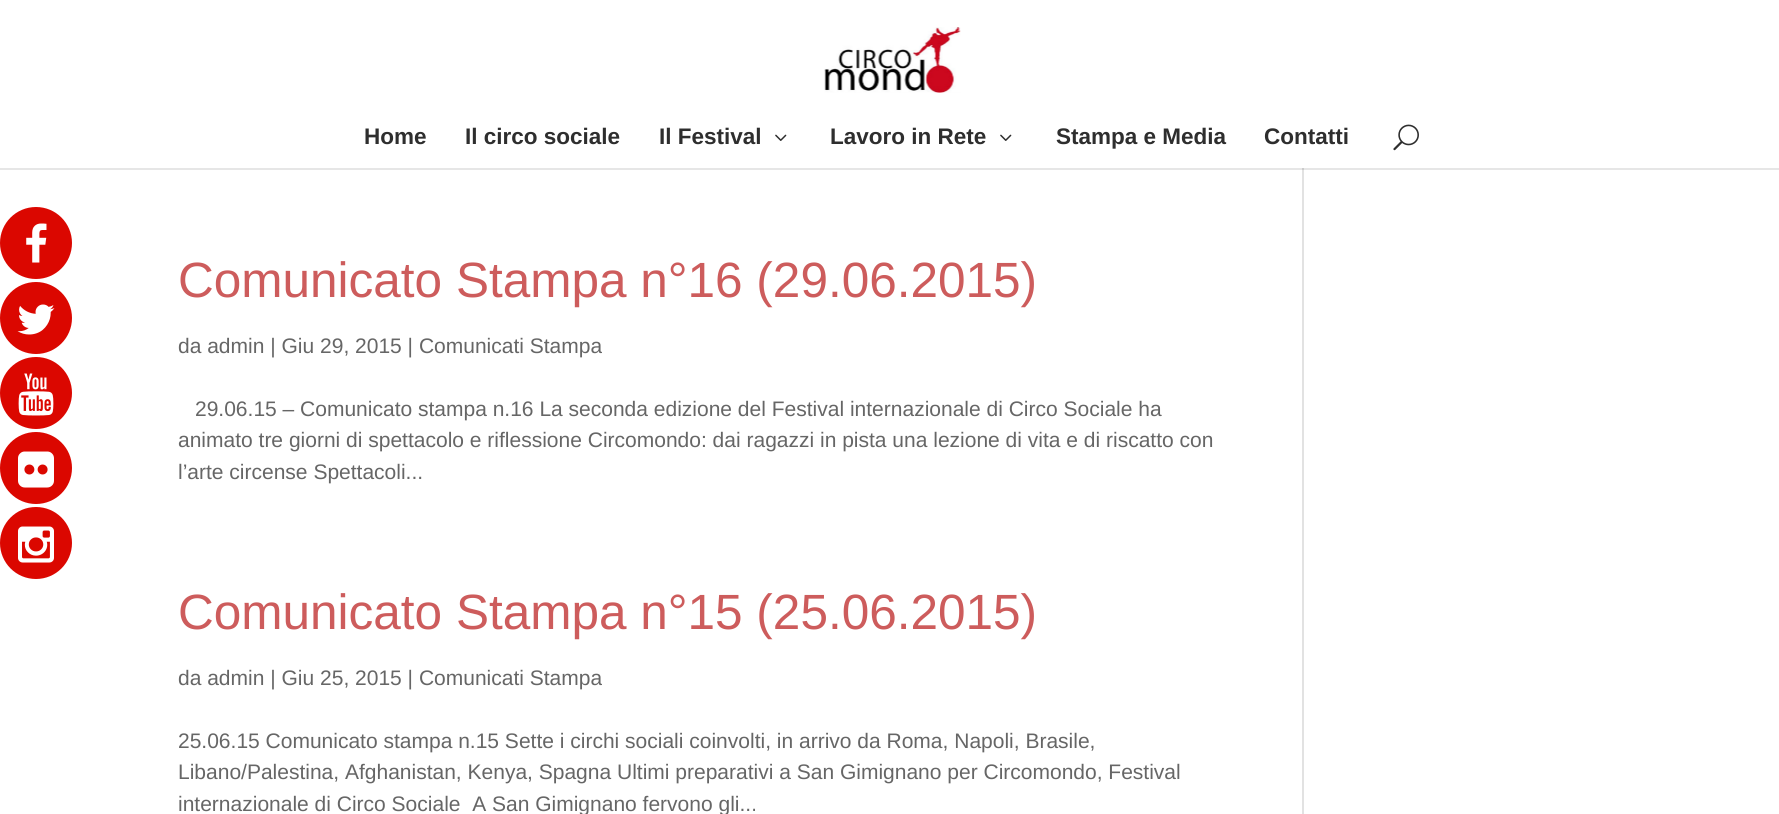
import math
import cairo



def draw_image(context, path, x, y, w, h):
    context.save()
    context.set_source_surface(cairo.ImageSurface.create_from_png(path), x, y)
    context.rectangle(x, y, w, h)
    context.fill()
    context.restore()


def draw(context):
    context.set_source_rgb(1, 1, 1)
    context.paint()
    context.set_source_rgb(230 / 255, 230 / 255, 230 / 255)
    context.rectangle(0, 168, 1779, 2)
    context.fill()
    context.set_source_rgb(219 / 255, 7 / 255, 0)
    context.arc(36, 243, 36, 0, 2 * math.pi)
    context.fill()
    draw_image(context, "images/1.png", 26, 223, 21, 40)
    context.arc(36, 318, 36, 0, 2 * math.pi)
    context.fill()
    draw_image(context, "images/2.png", 17, 304, 38, 31)
    context.arc(36, 393, 36, 0, 2 * math.pi)
    context.fill()
    draw_image(context, "images/3.png", 18, 373, 36, 43)
    context.arc(36, 468, 36, 0, 2 * math.pi)
    context.fill()
    draw_image(context, "images/4.png", 18, 451, 36, 37)
    context.arc(36, 543, 36, 0, 2 * math.pi)
    context.fill()
    draw_image(context, "images/5.png", 18, 526, 36, 37)
    draw_image(context, "images/6.png", 824, 27, 137, 66)
    draw_image(context, "images/7.png", 775, 134, 12, 7)
    draw_image(context, "images/7.png", 1000, 134, 12, 7)
    draw_image(context, "images/8.png", 1393, 124, 26, 27)
    context.set_source_rgb(226 / 255, 226 / 255, 226 / 255)
    context.rectangle(1302, 170, 2, 644)
    context.fill()
    context.set_source_rgb(203 / 255, 203 / 255, 203 / 255)
    context.rectangle(1302, 168, 2, 2)
    context.fill()
    context.select_font_face("Arimo", cairo.FontSlant.NORMAL, cairo.FontWeight.BOLD)
    context.set_font_size(22.5)
    context.set_source_rgb(46 / 255, 46 / 255, 46 / 255)
    context.move_to(364, 144)
    context.show_text("Home")
    context.move_to(465, 144)
    context.show_text("Il circo sociale")
    context.move_to(659, 144)
    context.show_text("Il Festival")
    context.move_to(830, 144)
    context.show_text("Lavoro in Rete")
    context.move_to(1056, 144)
    context.show_text("Stampa e Media")
    context.move_to(1264, 144)
    context.show_text("Contatti")
    context.select_font_face("Arimo")
    context.set_font_size(49.5)
    context.set_source_rgb(205 / 255, 92 / 255, 92 / 255)
    context.move_to(178, 297)
    context.show_text("Comunicato Stampa n°16 (29.06.2015)")
    context.set_font_size(21)
    context.set_source_rgb(102 / 255, 102 / 255, 102 / 255)
    context.move_to(178, 353)
    context.show_text("da admin | Giu 29, 2015 | Comunicati Stampa")
    context.move_to(195, 416)
    context.show_text("29.06.15 – Comunicato stampa n.16 La seconda edizione del Festival internazionale di Circo Sociale ha")
    context.move_to(178, 447)
    context.show_text("animato tre giorni di spettacolo e riflessione Circomondo: dai ragazzi in pista una lezione di vita e di riscatto con")
    context.move_to(178, 479)
    context.show_text("l’arte circense Spettacoli...")
    context.set_font_size(49.5)
    context.set_source_rgb(205 / 255, 92 / 255, 92 / 255)
    context.move_to(178, 629)
    context.show_text("Comunicato Stampa n°15 (25.06.2015)")
    context.set_font_size(21)
    context.set_source_rgb(102 / 255, 102 / 255, 102 / 255)
    context.move_to(178, 685)
    context.show_text("da admin | Giu 25, 2015 | Comunicati Stampa")
    context.move_to(178, 748)
    context.show_text("25.06.15 Comunicato stampa n.15 Sette i circhi sociali coinvolti, in arrivo da Roma, Napoli, Brasile,")
    context.move_to(178, 779)
    context.show_text("Libano/Palestina, Afghanistan, Kenya, Spagna Ultimi preparativi a San Gimignano per Circomondo, Festival")
    context.move_to(178, 811)
    context.show_text("internazionale di Circo Sociale  A San Gimignano fervono gli...")


surface = cairo.ImageSurface(cairo.Format.RGB24, 1779, 814)
context = cairo.Context(surface)
options = cairo.FontOptions()
options.set_hint_metrics(cairo.HintMetrics.OFF)
options.set_hint_style(cairo.HintStyle.NONE)
context.set_font_options(options)
context.set_miter_limit(4)
draw(context)
surface.write_to_png("out.png")
